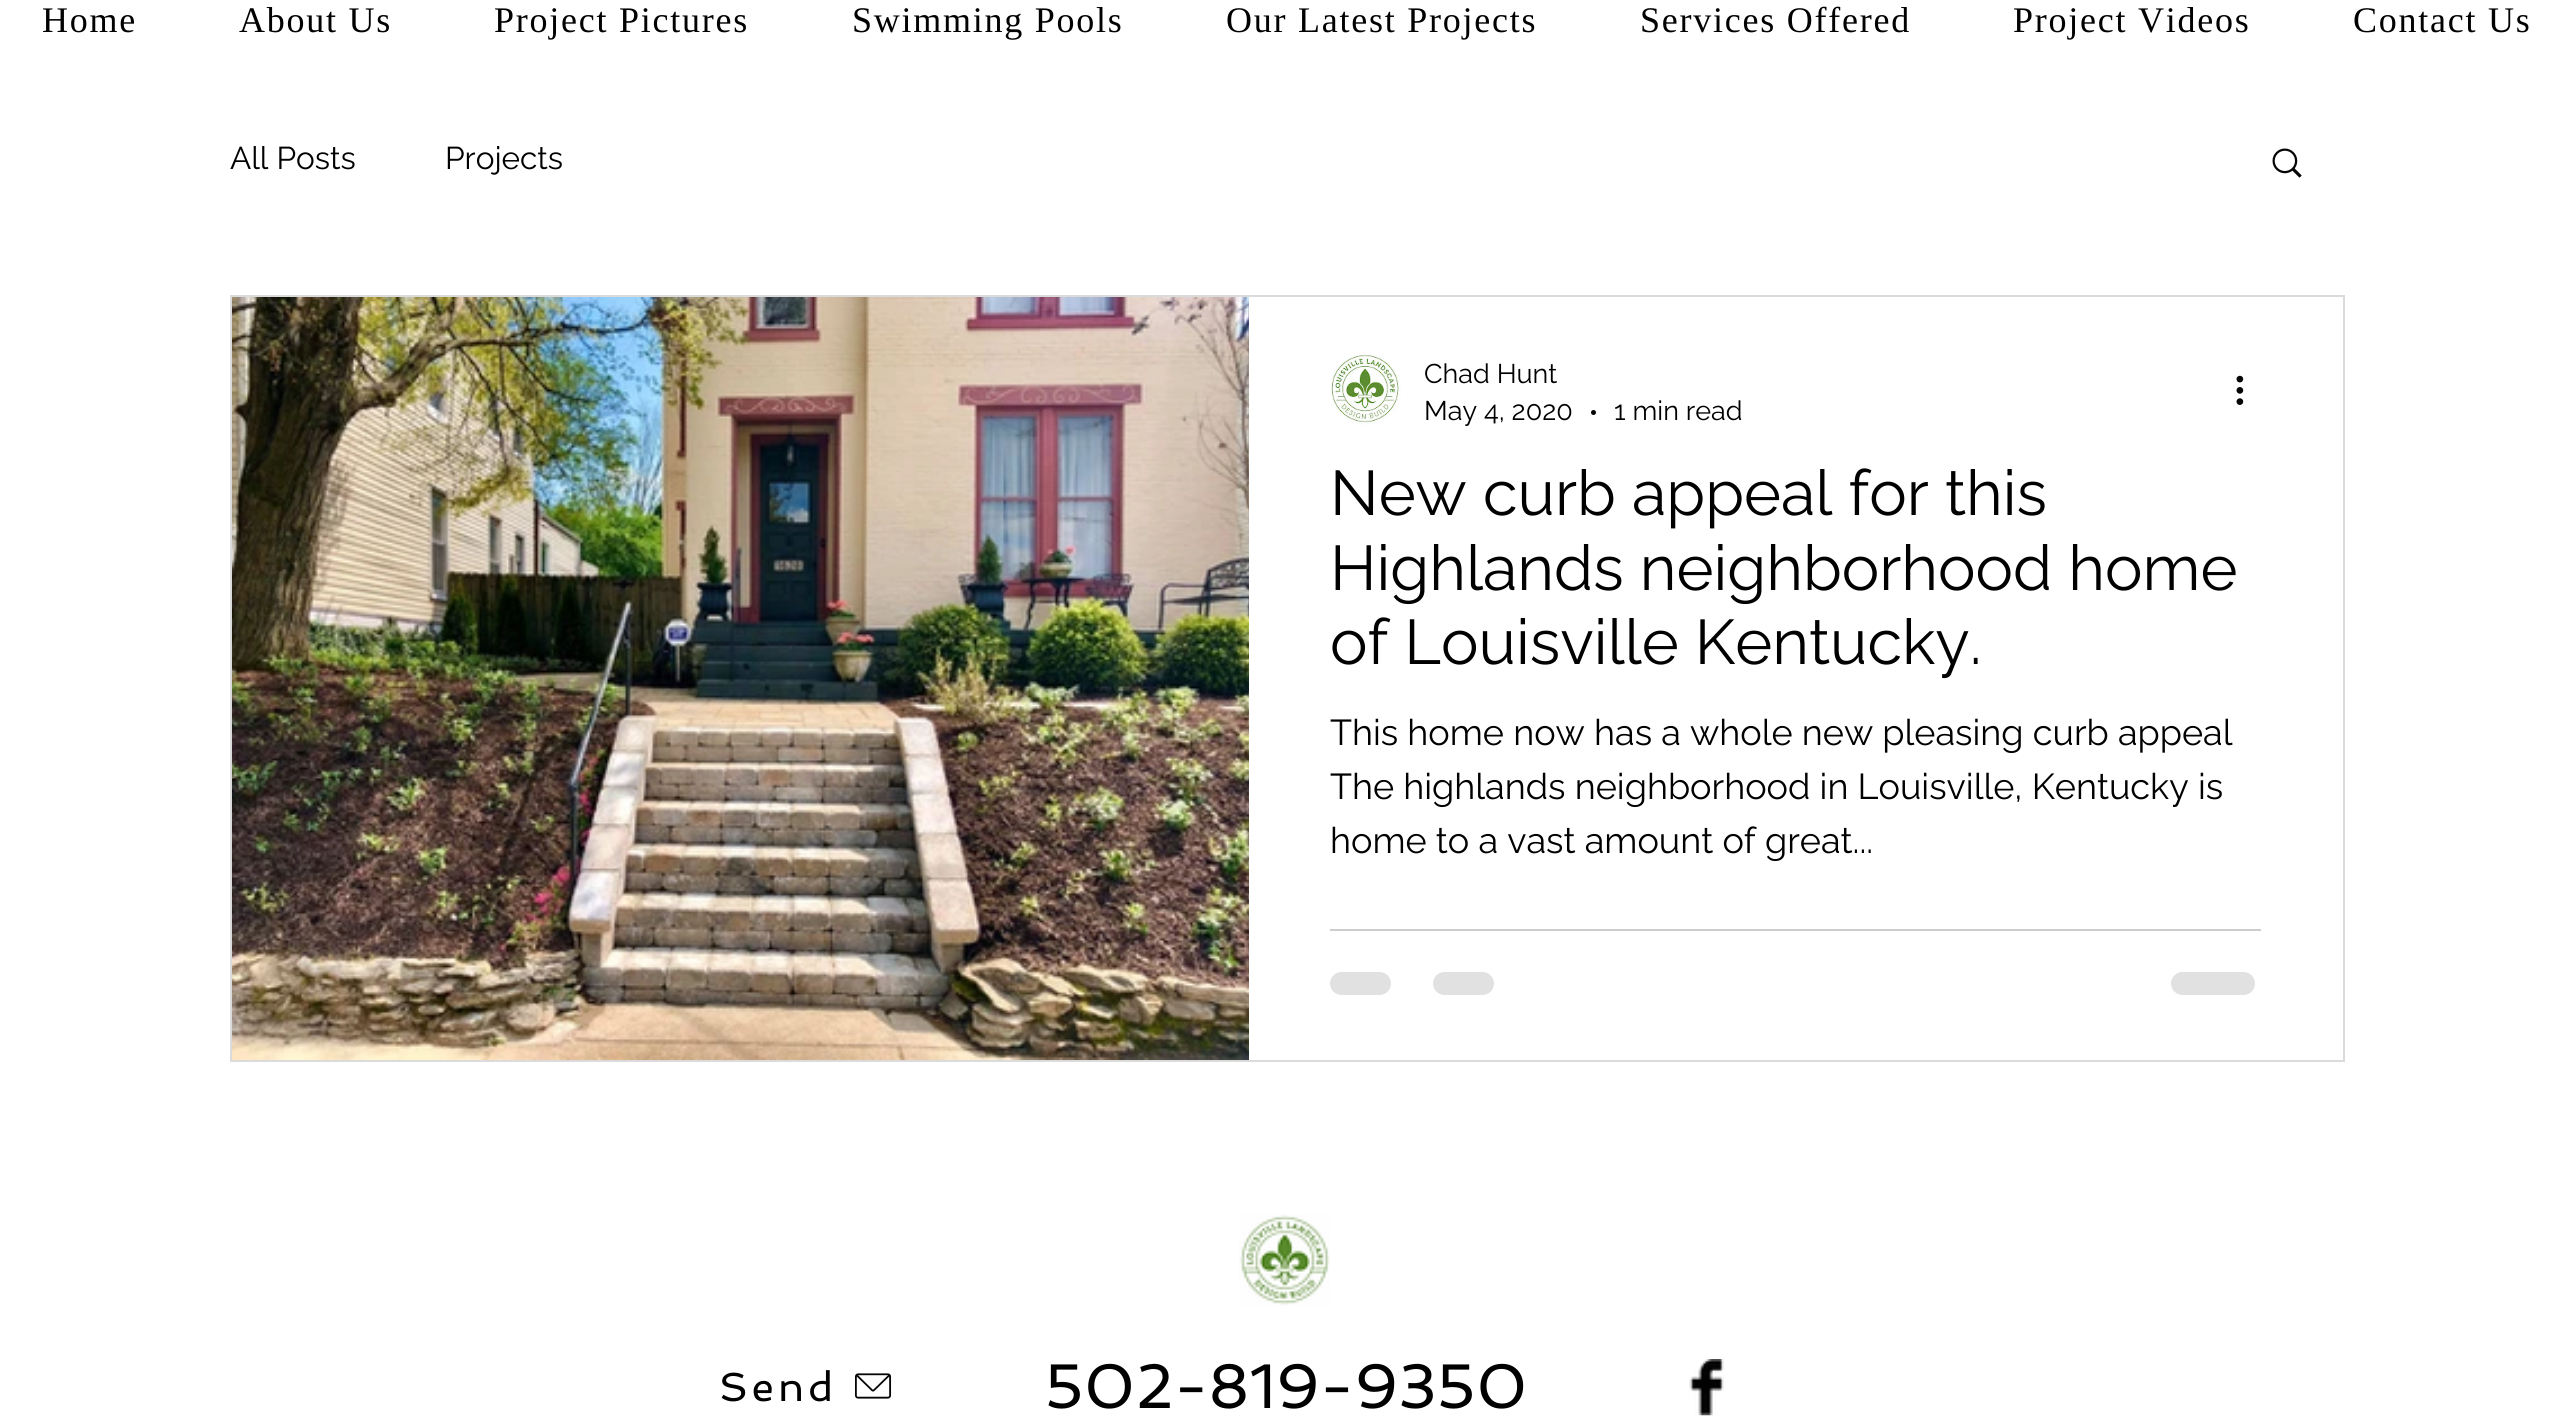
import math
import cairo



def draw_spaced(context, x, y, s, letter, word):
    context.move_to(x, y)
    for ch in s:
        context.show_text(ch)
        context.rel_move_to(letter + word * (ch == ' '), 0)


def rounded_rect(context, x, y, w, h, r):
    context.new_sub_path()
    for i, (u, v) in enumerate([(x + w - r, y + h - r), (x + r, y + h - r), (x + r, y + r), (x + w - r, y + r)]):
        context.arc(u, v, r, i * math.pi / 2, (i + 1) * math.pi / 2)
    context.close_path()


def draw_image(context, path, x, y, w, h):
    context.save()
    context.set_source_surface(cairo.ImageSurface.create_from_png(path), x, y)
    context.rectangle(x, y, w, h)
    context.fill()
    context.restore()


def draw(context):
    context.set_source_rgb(1, 1, 1)
    context.paint()
    draw_image(context, "images/1.png", 2272, 148, 30, 30)
    context.rectangle(231, 296, 2113, 765)
    context.set_source_rgb(219 / 255, 219 / 255, 219 / 255)
    context.stroke()
    draw_image(context, "images/2.png", 232, 297, 1017, 763)
    draw_image(context, "images/3.png", 1330, 354, 72, 71)
    context.set_source_rgb(5 / 255, 5 / 255, 5 / 255)
    context.arc(1593.5, 412.5, 2.5, 0, 2 * math.pi)
    context.fill()
    draw_image(context, "images/4.png", 2236, 375, 8, 30)
    context.set_source_rgb(205 / 255, 205 / 255, 205 / 255)
    context.rectangle(1330, 929, 931, 2)
    context.fill()
    context.set_source_rgb(225 / 255, 225 / 255, 225 / 255)
    rounded_rect(context, 1330, 972, 61, 23, 11.5)
    context.fill()
    rounded_rect(context, 1433, 972, 61, 23, 11.5)
    context.fill()
    rounded_rect(context, 2171, 972, 84, 23, 11.5)
    context.fill()
    draw_image(context, "images/5.png", 1239, 1214, 91, 92)
    draw_image(context, "images/6.png", 855, 1373, 37, 26)
    draw_image(context, "images/7.png", 1689, 1359, 35, 57)
    context.select_font_face("Liberation Serif")
    context.set_font_size(36)
    context.set_source_rgb(0, 0, 0)
    draw_spaced(context, 42, 32, "Home", 1.75, 0)
    draw_spaced(context, 239, 32, "About Us", 1.75, 0)
    draw_spaced(context, 494, 32, "Project Pictures", 1.75, 0)
    draw_spaced(context, 852, 32, "Swimming Pools", 1.75, 0)
    draw_spaced(context, 1226, 32, "Our Latest Projects", 1.75, 0)
    draw_spaced(context, 1640, 32, "Services Offered", 1.75, 0)
    draw_spaced(context, 2013, 32, "Project Videos", 1.75, 0)
    draw_spaced(context, 2353, 32, "Contact Us", 1.75, 0)
    context.select_font_face("Raleway")
    context.set_font_size(31.5)
    context.move_to(230, 169)
    context.show_text("All Posts")
    context.move_to(445, 169)
    context.show_text("Projects")
    context.set_font_size(27)
    context.move_to(1424, 383)
    context.show_text("Chad Hunt")
    context.move_to(1424, 420)
    context.show_text("May 4, 2020")
    context.move_to(1614, 420)
    context.show_text("1 min read")
    context.set_font_size(63)
    context.move_to(1330, 515)
    context.show_text("New curb appeal for this")
    context.move_to(1330, 590)
    context.show_text("Highlands neighborhood home")
    context.move_to(1330, 664)
    context.show_text("of Louisville Kentucky.")
    context.set_font_size(36)
    context.move_to(1330, 745)
    context.show_text("This home now has a whole new pleasing curb appeal")
    context.move_to(1330, 799)
    context.show_text("The highlands neighborhood in Louisville, Kentucky is")
    context.move_to(1330, 853)
    context.show_text("home to a vast amount of great...")
    context.select_font_face("Spinnaker")
    context.set_font_size(40.5)
    draw_spaced(context, 719, 1401, "Send", 4, 0)
    context.set_font_size(63)
    context.move_to(1045, 1408)
    context.show_text("502-819-9350")


surface = cairo.ImageSurface(cairo.Format.RGB24, 2574, 1418)
context = cairo.Context(surface)
options = cairo.FontOptions()
options.set_hint_metrics(cairo.HintMetrics.OFF)
options.set_hint_style(cairo.HintStyle.NONE)
context.set_font_options(options)
context.set_miter_limit(4)
draw(context)
surface.write_to_png("out.png")
